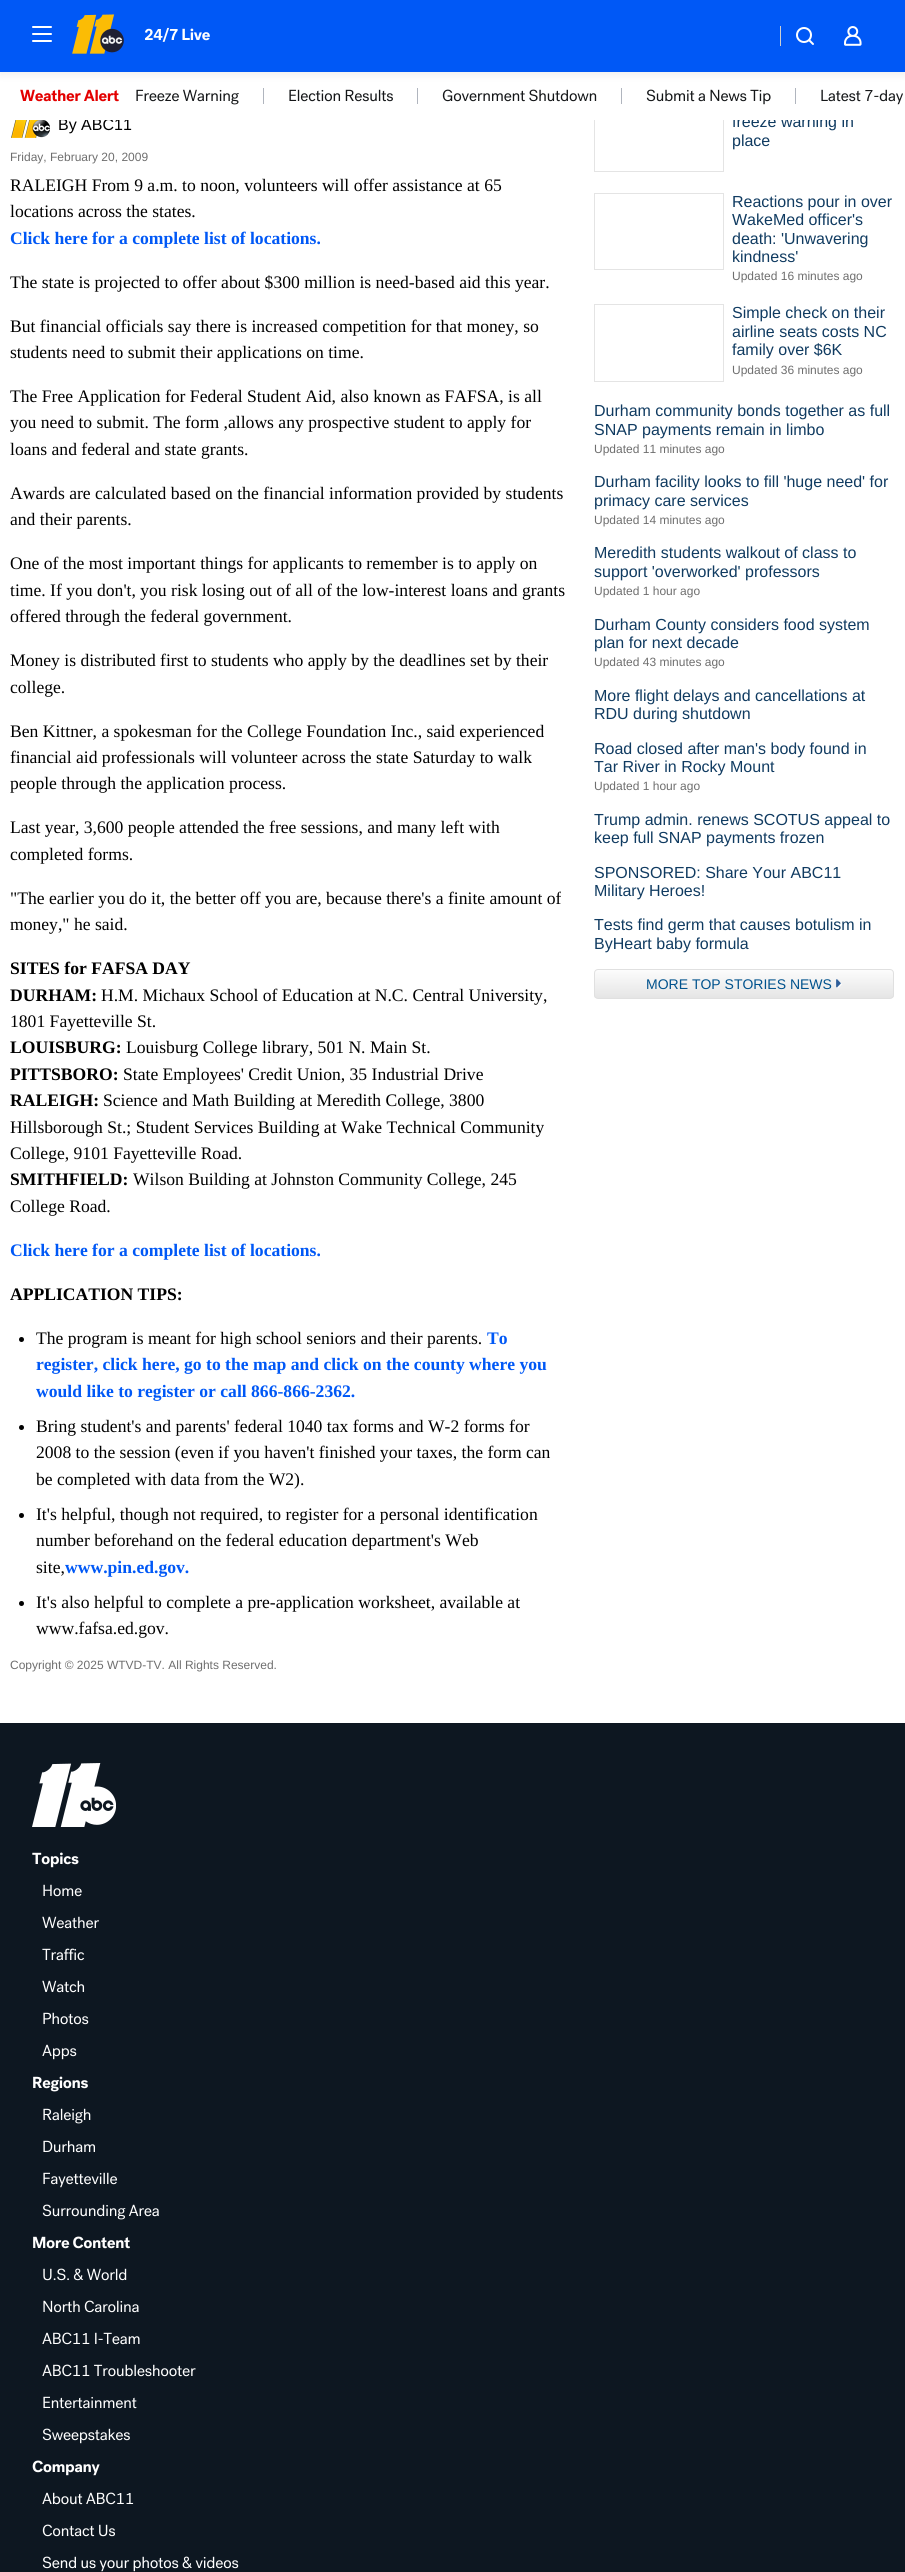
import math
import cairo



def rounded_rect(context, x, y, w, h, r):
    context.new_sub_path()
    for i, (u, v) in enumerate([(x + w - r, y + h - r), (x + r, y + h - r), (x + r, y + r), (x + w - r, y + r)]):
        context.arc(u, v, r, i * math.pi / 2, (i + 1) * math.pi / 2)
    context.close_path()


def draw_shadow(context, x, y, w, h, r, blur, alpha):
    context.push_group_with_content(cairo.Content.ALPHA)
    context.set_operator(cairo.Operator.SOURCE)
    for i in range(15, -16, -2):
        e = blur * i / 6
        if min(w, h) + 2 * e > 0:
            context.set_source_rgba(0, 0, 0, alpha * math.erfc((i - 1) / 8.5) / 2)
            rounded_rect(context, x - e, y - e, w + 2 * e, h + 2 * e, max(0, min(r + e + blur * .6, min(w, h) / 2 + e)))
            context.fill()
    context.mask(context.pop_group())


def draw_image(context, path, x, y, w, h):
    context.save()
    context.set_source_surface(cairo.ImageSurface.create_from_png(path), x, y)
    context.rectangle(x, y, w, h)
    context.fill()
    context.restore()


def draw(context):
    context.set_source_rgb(1, 1, 1)
    context.paint()
    draw_image(context, "images/11.png", 11, 120, 39, 18)
    context.set_source_rgb(0, 0, 0)
    context.arc(21.5, 1339.5, 2.5, 0, 2 * math.pi)
    context.fill()
    context.arc(21.5, 1427.5, 2.5, 0, 2 * math.pi)
    context.fill()
    context.arc(21.5, 1515.5, 2.5, 0, 2 * math.pi)
    context.fill()
    context.arc(21.5, 1603.5, 2.5, 0, 2 * math.pi)
    context.fill()
    context.rectangle(594.5, 95.5, 129, 76)
    context.set_source_rgb(228 / 255, 228 / 255, 228 / 255)
    context.set_line_width(1)
    context.stroke()
    context.rectangle(594.5, 193.5, 129, 76)
    context.stroke()
    context.rectangle(594.5, 304.5, 129, 77)
    context.stroke()
    context.save()
    rounded_rect(context, 594, 969, 300, 30, 4)
    context.clip()
    gradient = cairo.LinearGradient(744, 970, 744, 998)
    gradient.add_color_stop_rgba(0, 252 / 255, 252 / 255, 252 / 255, 1)
    gradient.add_color_stop_rgba(1, 229 / 255, 229 / 255, 229 / 255, 1)
    context.set_source(gradient)
    context.rectangle(594, 970, 300, 28)
    context.fill()
    context.restore()
    rounded_rect(context, 594.5, 969.5, 299, 29, 3.5)
    context.set_source_rgb(224 / 255, 224 / 255, 224 / 255)
    context.stroke()
    draw_image(context, "images/12.png", 836, 979, 6, 9)
    context.set_source_rgb(13 / 255, 23 / 255, 33 / 255)
    context.rectangle(0, 1723, 905, 849)
    context.fill()
    draw_image(context, "images/13.png", 32, 1763, 84, 64)
    draw_image(context, "images/14.png", 32, 1852, 47, 16)
    draw_image(context, "images/15.png", 43, 1884, 39, 13)
    draw_image(context, "images/16.png", 42, 1916, 57, 13)
    draw_image(context, "images/17.png", 42, 1948, 43, 13)
    draw_image(context, "images/18.png", 42, 1980, 43, 13)
    draw_image(context, "images/19.png", 43, 2012, 46, 13)
    draw_image(context, "images/20.png", 42, 2044, 35, 16)
    draw_image(context, "images/21.png", 33, 2076, 55, 16)
    draw_image(context, "images/22.png", 43, 2108, 48, 16)
    draw_image(context, "images/23.png", 43, 2140, 52, 13)
    draw_image(context, "images/24.png", 43, 2172, 75, 16)
    draw_image(context, "images/25.png", 42, 2204, 117, 16)
    draw_image(context, "images/26.png", 33, 2236, 97, 13)
    draw_image(context, "images/27.png", 43, 2268, 84, 13)
    draw_image(context, "images/28.png", 43, 2300, 96, 13)
    draw_image(context, "images/29.png", 42, 2332, 98, 13)
    draw_image(context, "images/30.png", 42, 2364, 154, 13)
    draw_image(context, "images/31.png", 43, 2396, 94, 13)
    draw_image(context, "images/32.png", 42, 2428, 88, 16)
    draw_image(context, "images/33.png", 32, 2460, 68, 16)
    draw_image(context, "images/34.png", 42, 2492, 92, 13)
    draw_image(context, "images/35.png", 42, 2524, 73, 13)
    draw_image(context, "images/36.png", 42, 2556, 197, 16)
    context.select_font_face("Liberation Sans")
    context.set_font_size(16)
    context.set_source_rgb(0, 0, 0)
    context.move_to(58, 130)
    context.show_text("By ABC11")
    context.set_font_size(12)
    context.set_source_rgb(110 / 255, 110 / 255, 110 / 255)
    context.move_to(10, 161)
    context.show_text("Friday, February 20, 2009")
    context.select_font_face("Liberation Serif")
    context.set_font_size(17.6)
    context.set_source_rgb(0, 0, 0)
    context.move_to(10, 191)
    context.show_text("RALEIGH From 9 a.m. to noon, volunteers will offer assistance at 65")
    context.move_to(10, 217)
    context.show_text("locations across the states.")
    context.select_font_face("Liberation Serif", cairo.FontSlant.NORMAL, cairo.FontWeight.BOLD)
    context.set_source_rgb(0, 88 / 255, 246 / 255)
    context.move_to(10, 244)
    context.show_text("Click here for a complete list of locations.")
    context.select_font_face("Liberation Serif")
    context.set_source_rgb(0, 0, 0)
    context.move_to(10, 288)
    context.show_text("The state is projected to offer about $300 million is need-based aid this year.")
    context.move_to(10, 332)
    context.show_text("But financial officials say there is increased competition for that money, so")
    context.move_to(10, 358)
    context.show_text("students need to submit their applications on time.")
    context.move_to(10, 402)
    context.show_text("The Free Application for Federal Student Aid, also known as FAFSA, is all")
    context.move_to(10, 428)
    context.show_text("you need to submit. The form ,allows any prospective student to apply for")
    context.move_to(10, 455)
    context.show_text("loans and federal and state grants.")
    context.move_to(10, 499)
    context.show_text("Awards are calculated based on the financial information provided by students")
    context.move_to(10, 525)
    context.show_text("and their parents.")
    context.move_to(10, 569)
    context.show_text("One of the most important things for applicants to remember is to apply on")
    context.move_to(10, 596)
    context.show_text("time. If you don't, you risk losing out of all of the low-interest loans and grants")
    context.move_to(10, 622)
    context.show_text("offered through the federal government.")
    context.move_to(10, 666)
    context.show_text("Money is distributed first to students who apply by the deadlines set by their")
    context.move_to(10, 693)
    context.show_text("college.")
    context.move_to(10, 737)
    context.show_text("Ben Kittner, a spokesman for the College Foundation Inc., said experienced")
    context.move_to(10, 763)
    context.show_text("financial aid professionals will volunteer across the state Saturday to walk")
    context.move_to(10, 789)
    context.show_text("people through the application process.")
    context.move_to(10, 833)
    context.show_text("Last year, 3,600 people attended the free sessions, and many left with")
    context.move_to(10, 860)
    context.show_text("completed forms.")
    context.move_to(10, 904)
    context.show_text("\"The earlier you do it, the better off you are, because there's a finite amount of")
    context.move_to(10, 930)
    context.show_text("money,\" he said.")
    context.select_font_face("Liberation Serif", cairo.FontSlant.NORMAL, cairo.FontWeight.BOLD)
    context.move_to(10, 974)
    context.show_text("SITES for FAFSA DAY")
    context.move_to(10, 1001)
    context.show_text("DURHAM:")
    context.select_font_face("Liberation Serif")
    context.move_to(101, 1001)
    context.show_text("H.M. Michaux School of Education at N.C. Central University,")
    context.move_to(10, 1027)
    context.show_text("1801 Fayetteville St.")
    context.select_font_face("Liberation Serif", cairo.FontSlant.NORMAL, cairo.FontWeight.BOLD)
    context.move_to(10, 1053)
    context.show_text("LOUISBURG:")
    context.select_font_face("Liberation Serif")
    context.move_to(126, 1053)
    context.show_text("Louisburg College library, 501 N. Main St.")
    context.select_font_face("Liberation Serif", cairo.FontSlant.NORMAL, cairo.FontWeight.BOLD)
    context.move_to(10, 1080)
    context.show_text("PITTSBORO:")
    context.select_font_face("Liberation Serif")
    context.move_to(123, 1080)
    context.show_text("State Employees' Credit Union, 35 Industrial Drive")
    context.select_font_face("Liberation Serif", cairo.FontSlant.NORMAL, cairo.FontWeight.BOLD)
    context.move_to(10, 1106)
    context.show_text("RALEIGH:")
    context.select_font_face("Liberation Serif")
    context.move_to(103, 1106)
    context.show_text("Science and Math Building at Meredith College, 3800")
    context.move_to(10, 1133)
    context.show_text("Hillsborough St.; Student Services Building at Wake Technical Community")
    context.move_to(10, 1159)
    context.show_text("College, 9101 Fayetteville Road.")
    context.select_font_face("Liberation Serif", cairo.FontSlant.NORMAL, cairo.FontWeight.BOLD)
    context.move_to(10, 1185)
    context.show_text("SMITHFIELD:")
    context.select_font_face("Liberation Serif")
    context.move_to(133, 1185)
    context.show_text("Wilson Building at Johnston Community College, 245")
    context.move_to(10, 1212)
    context.show_text("College Road.")
    context.select_font_face("Liberation Serif", cairo.FontSlant.NORMAL, cairo.FontWeight.BOLD)
    context.set_source_rgb(0, 88 / 255, 246 / 255)
    context.move_to(10, 1256)
    context.show_text("Click here for a complete list of locations.")
    context.set_source_rgb(0, 0, 0)
    context.move_to(10, 1300)
    context.show_text("APPLICATION TIPS:")
    context.select_font_face("Liberation Serif")
    context.move_to(36, 1344)
    context.show_text("The program is meant for high school seniors and their parents.")
    context.select_font_face("Liberation Serif", cairo.FontSlant.NORMAL, cairo.FontWeight.BOLD)
    context.set_source_rgb(0, 88 / 255, 246 / 255)
    context.move_to(487, 1344)
    context.show_text("To")
    context.move_to(36, 1370)
    context.show_text("register, click here, go to the map and click on the county where you")
    context.move_to(36, 1397)
    context.show_text("would like to register or call 866-866-2362.")
    context.select_font_face("Liberation Serif")
    context.set_source_rgb(0, 0, 0)
    context.move_to(36, 1432)
    context.show_text("Bring student's and parents' federal 1040 tax forms and W-2 forms for")
    context.move_to(36, 1458)
    context.show_text("2008 to the session (even if you haven't finished your taxes, the form can")
    context.move_to(36, 1485)
    context.show_text("be completed with data from the W2).")
    context.move_to(36, 1520)
    context.show_text("It's helpful, though not required, to register for a personal identification")
    context.move_to(36, 1546)
    context.show_text("number beforehand on the federal education department's Web")
    context.move_to(36, 1573)
    context.show_text("site,")
    context.select_font_face("Liberation Serif", cairo.FontSlant.NORMAL, cairo.FontWeight.BOLD)
    context.set_source_rgb(0, 88 / 255, 246 / 255)
    context.move_to(65, 1573)
    context.show_text("www.pin.ed.gov.")
    context.select_font_face("Liberation Serif")
    context.set_source_rgb(0, 0, 0)
    context.move_to(36, 1608)
    context.show_text("It's also helpful to complete a pre-application worksheet, available at")
    context.move_to(36, 1634)
    context.show_text("www.fafsa.ed.gov.")
    context.select_font_face("Liberation Sans")
    context.set_font_size(12)
    context.set_source_rgb(110 / 255, 110 / 255, 110 / 255)
    context.move_to(10, 1669)
    context.show_text("Copyright © 2025 WTVD-TV. All Rights Reserved.")
    context.set_font_size(16)
    context.set_source_rgb(16 / 255, 59 / 255, 97 / 255)
    context.move_to(732, 127)
    context.show_text("freeze warning in")
    context.set_source_rgb(1, 1, 1)
    context.rectangle(59, 95, 794, 25)
    context.fill()
    draw_image(context, "images/10.png", 821, 89, 82, 16)
    draw_image(context, "images/9.png", 646, 89, 125, 16)
    draw_image(context, "images/8.png", 442, 89, 155, 13)
    draw_image(context, "images/7.png", 289, 89, 104, 13)
    draw_image(context, "images/6.png", 136, 89, 103, 16)
    draw_image(context, "images/5.png", 20, 89, 99, 13)
    context.set_source_rgb(176 / 255, 181 / 255, 190 / 255)
    context.rectangle(795, 88, 1, 16)
    context.fill()
    context.rectangle(621, 88, 1, 16)
    context.fill()
    context.rectangle(417, 88, 1, 16)
    context.fill()
    context.rectangle(263, 88, 1, 16)
    context.fill()
    context.set_source_rgb(0, 0, 0)
    draw_shadow(context, 0, 2, 905, 72, 0, 5, 0.08)
    context.set_source_rgb(0, 88 / 255, 246 / 255)
    context.rectangle(0, 0, 905, 72)
    context.fill()
    draw_image(context, "images/4.png", 844, 26, 18, 20)
    draw_image(context, "images/3.png", 796, 27, 18, 18)
    context.set_source_rgb(206 / 255, 207 / 255, 207 / 255)
    context.rectangle(780, 26, 1, 20)
    context.fill()
    context.set_source_rgb(1, 1, 1)
    rounded_rect(context, 32, 40, 20, 2, 1)
    context.fill()
    rounded_rect(context, 32, 26, 20, 2, 1)
    context.fill()
    rounded_rect(context, 32, 33, 20, 2, 1)
    context.fill()
    draw_image(context, "images/2.png", 144, 27, 66, 15)
    draw_image(context, "images/1.png", 72, 14, 52, 40)
    context.set_source_rgb(16 / 255, 59 / 255, 97 / 255)
    context.move_to(732, 146)
    context.show_text("place")
    context.move_to(732, 207)
    context.show_text("Reactions pour in over")
    context.move_to(732, 225)
    context.show_text("WakeMed officer's")
    context.move_to(732, 244)
    context.show_text("death: 'Unwavering")
    context.move_to(732, 262)
    context.show_text("kindness'")
    context.set_font_size(12)
    context.set_source_rgb(110 / 255, 110 / 255, 110 / 255)
    context.move_to(732, 280)
    context.show_text("Updated 16 minutes ago")
    context.set_font_size(16)
    context.set_source_rgb(16 / 255, 59 / 255, 97 / 255)
    context.move_to(732, 318)
    context.show_text("Simple check on their")
    context.move_to(732, 337)
    context.show_text("airline seats costs NC")
    context.move_to(732, 355)
    context.show_text("family over $6K")
    context.set_font_size(12)
    context.set_source_rgb(110 / 255, 110 / 255, 110 / 255)
    context.move_to(732, 374)
    context.show_text("Updated 36 minutes ago")
    context.set_font_size(16)
    context.set_source_rgb(16 / 255, 59 / 255, 97 / 255)
    context.move_to(594, 416)
    context.show_text("Durham community bonds together as full")
    context.move_to(594, 435)
    context.show_text("SNAP payments remain in limbo")
    context.set_font_size(12)
    context.set_source_rgb(110 / 255, 110 / 255, 110 / 255)
    context.move_to(594, 453)
    context.show_text("Updated 11 minutes ago")
    context.set_font_size(16)
    context.set_source_rgb(16 / 255, 59 / 255, 97 / 255)
    context.move_to(594, 487)
    context.show_text("Durham facility looks to fill 'huge need' for")
    context.move_to(594, 506)
    context.show_text("primacy care services")
    context.set_font_size(12)
    context.set_source_rgb(110 / 255, 110 / 255, 110 / 255)
    context.move_to(594, 524)
    context.show_text("Updated 14 minutes ago")
    context.set_font_size(16)
    context.set_source_rgb(16 / 255, 59 / 255, 97 / 255)
    context.move_to(594, 558)
    context.show_text("Meredith students walkout of class to")
    context.move_to(594, 577)
    context.show_text("support 'overworked' professors")
    context.set_font_size(12)
    context.set_source_rgb(110 / 255, 110 / 255, 110 / 255)
    context.move_to(594, 595)
    context.show_text("Updated 1 hour ago")
    context.set_font_size(16)
    context.set_source_rgb(16 / 255, 59 / 255, 97 / 255)
    context.move_to(594, 630)
    context.show_text("Durham County considers food system")
    context.move_to(594, 648)
    context.show_text("plan for next decade")
    context.set_font_size(12)
    context.set_source_rgb(110 / 255, 110 / 255, 110 / 255)
    context.move_to(594, 666)
    context.show_text("Updated 43 minutes ago")
    context.set_font_size(16)
    context.set_source_rgb(16 / 255, 59 / 255, 97 / 255)
    context.move_to(594, 701)
    context.show_text("More flight delays and cancellations at")
    context.move_to(594, 719)
    context.show_text("RDU during shutdown")
    context.move_to(594, 754)
    context.show_text("Road closed after man's body found in")
    context.move_to(594, 772)
    context.show_text("Tar River in Rocky Mount")
    context.set_font_size(12)
    context.set_source_rgb(110 / 255, 110 / 255, 110 / 255)
    context.move_to(594, 790)
    context.show_text("Updated 1 hour ago")
    context.set_font_size(16)
    context.set_source_rgb(16 / 255, 59 / 255, 97 / 255)
    context.move_to(594, 825)
    context.show_text("Trump admin. renews SCOTUS appeal to")
    context.move_to(594, 843)
    context.show_text("keep full SNAP payments frozen")
    context.move_to(594, 878)
    context.show_text("SPONSORED: Share Your ABC11")
    context.move_to(594, 896)
    context.show_text("Military Heroes!")
    context.move_to(594, 930)
    context.show_text("Tests find germ that causes botulism in")
    context.move_to(594, 949)
    context.show_text("ByHeart baby formula")
    context.set_font_size(14)
    context.set_source_rgb(0, 82 / 255, 141 / 255)
    context.move_to(646, 989)
    context.show_text("MORE TOP STORIES NEWS")


surface = cairo.ImageSurface(cairo.Format.RGB24, 905, 2572)
context = cairo.Context(surface)
options = cairo.FontOptions()
options.set_hint_metrics(cairo.HintMetrics.OFF)
options.set_hint_style(cairo.HintStyle.NONE)
context.set_font_options(options)
context.set_miter_limit(4)
draw(context)
surface.write_to_png("out.png")
